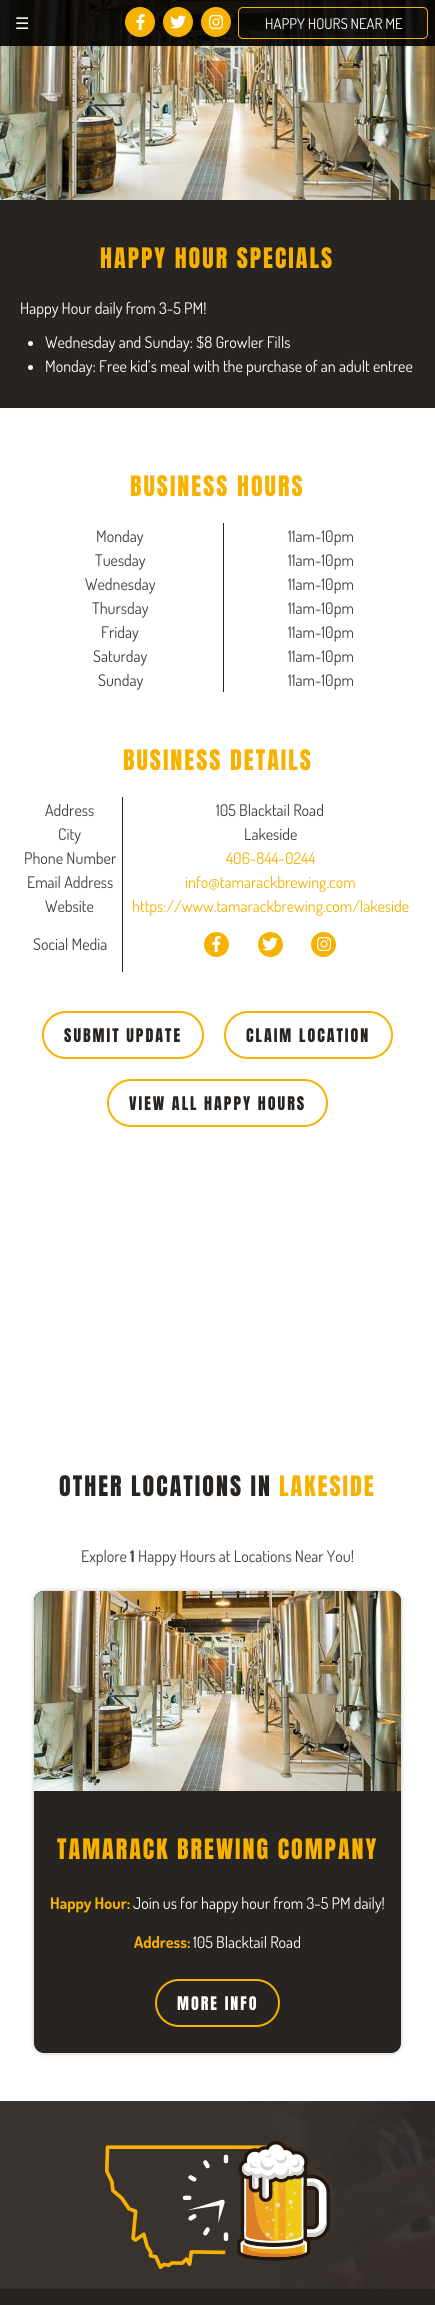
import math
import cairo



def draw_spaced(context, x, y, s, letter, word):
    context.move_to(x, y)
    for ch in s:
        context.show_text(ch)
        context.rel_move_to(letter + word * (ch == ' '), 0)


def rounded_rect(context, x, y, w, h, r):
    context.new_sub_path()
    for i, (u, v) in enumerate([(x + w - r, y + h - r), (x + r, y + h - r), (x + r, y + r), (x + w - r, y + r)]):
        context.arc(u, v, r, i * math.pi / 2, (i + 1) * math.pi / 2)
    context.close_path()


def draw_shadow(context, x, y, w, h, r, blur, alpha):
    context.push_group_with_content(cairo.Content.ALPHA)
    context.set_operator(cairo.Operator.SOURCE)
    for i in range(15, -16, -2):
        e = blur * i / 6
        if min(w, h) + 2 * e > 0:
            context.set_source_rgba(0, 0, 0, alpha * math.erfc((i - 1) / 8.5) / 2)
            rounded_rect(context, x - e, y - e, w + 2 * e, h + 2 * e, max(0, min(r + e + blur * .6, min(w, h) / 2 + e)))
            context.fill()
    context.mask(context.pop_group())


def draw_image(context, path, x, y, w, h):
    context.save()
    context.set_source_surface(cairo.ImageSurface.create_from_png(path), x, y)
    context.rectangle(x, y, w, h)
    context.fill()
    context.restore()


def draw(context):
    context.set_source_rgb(1, 1, 1)
    context.paint()
    draw_image(context, "images/4.png", 0, 0, 435, 200)
    context.set_source_rgba(0, 0, 0, 0.9)
    context.rectangle(0, 0, 435, 46)
    context.fill()
    context.set_source_rgb(247 / 255, 178 / 255, 0)
    context.arc(140, 22, 15, 0, 2 * math.pi)
    context.fill()
    draw_image(context, "images/1.png", 136, 14, 9, 16)
    context.arc(178, 22, 15, 0, 2 * math.pi)
    context.fill()
    draw_image(context, "images/2.png", 170, 15, 16, 14)
    context.arc(216, 22, 15, 0, 2 * math.pi)
    context.fill()
    draw_image(context, "images/3.png", 209, 15, 14, 14)
    rounded_rect(context, 238.5, 7.5, 189, 31, 4.5)
    context.set_line_width(1)
    context.stroke()
    context.set_source_rgb(40 / 255, 36 / 255, 34 / 255)
    context.rectangle(0, 200, 435, 208)
    context.fill()
    context.set_source_rgb(1, 1, 1)
    context.arc(30.5, 343.5, 2.5, 0, 2 * math.pi)
    context.fill()
    context.arc(30.5, 367.5, 2.5, 0, 2 * math.pi)
    context.fill()
    context.set_source_rgb(40 / 255, 36 / 255, 34 / 255)
    context.rectangle(223, 523, 1, 169)
    context.fill()
    context.rectangle(122, 797, 1, 175)
    context.fill()
    context.set_source_rgb(247 / 255, 178 / 255, 0)
    context.arc(216.5, 944.5, 12.5, 0, 2 * math.pi)
    context.fill()
    draw_image(context, "images/1.png", 212, 936, 9, 16)
    context.arc(270.5, 944.5, 12.5, 0, 2 * math.pi)
    context.fill()
    draw_image(context, "images/2.png", 262, 937, 16, 14)
    context.arc(323.5, 944.5, 12.5, 0, 2 * math.pi)
    context.fill()
    draw_image(context, "images/3.png", 317, 937, 14, 14)
    rounded_rect(context, 43, 1012, 160, 46, 23)
    context.set_line_width(2)
    context.stroke()
    rounded_rect(context, 225, 1012, 167, 46, 23)
    context.stroke()
    rounded_rect(context, 108, 1080, 219, 46, 23)
    context.stroke()
    context.set_source_rgb(0, 0, 0)
    draw_shadow(context, 34, 1591, 367, 462, 10, 2.5, 0.25)
    context.set_source_rgb(40 / 255, 36 / 255, 34 / 255)
    rounded_rect(context, 34, 1591, 367, 462, 10)
    context.fill()
    draw_image(context, "images/5.png", 34, 1591, 367, 200)
    rounded_rect(context, 156, 1980, 123, 46, 23)
    context.set_source_rgb(247 / 255, 178 / 255, 0)
    context.stroke()
    draw_image(context, "images/7.png", 0, 2101, 435, 188)
    draw_image(context, "images/6.png", 105, 2141, 225, 128)
    context.set_source_rgb(40 / 255, 36 / 255, 34 / 255)
    context.rectangle(0, 2289, 435, 16)
    context.fill()
    context.select_font_face("DejaVu Sans")
    context.set_font_size(16)
    context.set_source_rgb(1, 1, 1)
    context.move_to(15, 29)
    context.show_text("☰")
    context.select_font_face("Dosis")
    context.set_font_size(14.75)
    context.move_to(265, 29)
    context.show_text("HAPPY HOURS NEAR ME")
    context.select_font_face("Anton")
    context.set_font_size(24)
    context.set_source_rgb(247 / 255, 178 / 255, 0)
    draw_spaced(context, 100, 268, "HAPPY HOUR SPECIALS", 2, 0)
    context.select_font_face("Dosis")
    context.set_font_size(16)
    context.set_source_rgb(1, 1, 1)
    context.move_to(20, 314)
    context.show_text("Happy Hour daily from 3-5 PM!")
    context.move_to(45, 348)
    context.show_text("Wednesday and Sunday: $8 Growler Fills")
    context.move_to(45, 372)
    context.show_text("Monday: Free kid’s meal with the purchase of an adult entree")
    context.select_font_face("Anton")
    context.set_font_size(24)
    context.set_source_rgb(247 / 255, 178 / 255, 0)
    draw_spaced(context, 130, 496, "BUSINESS HOURS", 2, 0)
    context.select_font_face("Dosis")
    context.set_font_size(16)
    context.set_source_rgb(64 / 255, 64 / 255, 64 / 255)
    context.move_to(96, 542)
    context.show_text("Monday")
    context.move_to(288, 542)
    context.show_text("11am-10pm")
    context.move_to(95, 566)
    context.show_text("Tuesday")
    context.move_to(288, 566)
    context.show_text("11am-10pm")
    context.move_to(85, 590)
    context.show_text("Wednesday")
    context.move_to(288, 590)
    context.show_text("11am-10pm")
    context.move_to(92, 614)
    context.show_text("Thursday")
    context.move_to(288, 614)
    context.show_text("11am-10pm")
    context.move_to(101, 638)
    context.show_text("Friday")
    context.move_to(288, 638)
    context.show_text("11am-10pm")
    context.move_to(93, 662)
    context.show_text("Saturday")
    context.move_to(288, 662)
    context.show_text("11am-10pm")
    context.move_to(98, 686)
    context.show_text("Sunday")
    context.move_to(288, 686)
    context.show_text("11am-10pm")
    context.select_font_face("Anton")
    context.set_font_size(24)
    context.set_source_rgb(247 / 255, 178 / 255, 0)
    draw_spaced(context, 123, 770, "BUSINESS DETAILS", 2, 0)
    context.select_font_face("Dosis")
    context.set_font_size(16)
    context.set_source_rgb(64 / 255, 64 / 255, 64 / 255)
    context.move_to(45, 816)
    context.show_text("Address")
    context.move_to(216, 816)
    context.show_text("105 Blacktail Road")
    context.move_to(58, 840)
    context.show_text("City")
    context.move_to(244, 840)
    context.show_text("Lakeside")
    context.move_to(24, 864)
    context.show_text("Phone Number")
    context.set_source_rgb(247 / 255, 178 / 255, 0)
    context.move_to(226, 864)
    context.show_text("406-844-0244")
    context.set_source_rgb(64 / 255, 64 / 255, 64 / 255)
    context.move_to(27, 888)
    context.show_text("Email Address")
    context.set_source_rgb(247 / 255, 178 / 255, 0)
    context.move_to(185, 888)
    context.show_text("info@tamarackbrewing.com")
    context.set_source_rgb(64 / 255, 64 / 255, 64 / 255)
    context.move_to(45, 912)
    context.show_text("Website")
    context.set_source_rgb(247 / 255, 178 / 255, 0)
    context.move_to(132, 912)
    context.show_text("https://www.tamarackbrewing.com/lakeside")
    context.set_source_rgb(64 / 255, 64 / 255, 64 / 255)
    context.move_to(33, 950)
    context.show_text("Social Media")
    context.select_font_face("Anton")
    context.set_source_rgb(40 / 255, 36 / 255, 34 / 255)
    draw_spaced(context, 64, 1042, "SUBMIT UPDATE", 2, 0)
    draw_spaced(context, 246, 1042, "CLAIM LOCATION", 2, 0)
    draw_spaced(context, 129, 1110, "VIEW ALL HAPPY HOURS", 2, 0)
    context.set_font_size(24)
    draw_spaced(context, 59, 1496, "OTHER LOCATIONS IN", 2, 0)
    context.set_source_rgb(247 / 255, 178 / 255, 0)
    draw_spaced(context, 279, 1496, "LAKESIDE", 2, 0)
    context.select_font_face("Dosis")
    context.set_font_size(16)
    context.set_source_rgb(64 / 255, 64 / 255, 64 / 255)
    context.move_to(81, 1562)
    context.show_text("Explore")
    context.select_font_face("Dosis", cairo.FontSlant.NORMAL, cairo.FontWeight.BOLD)
    context.move_to(130, 1562)
    context.show_text("1")
    context.select_font_face("Dosis")
    context.move_to(138, 1562)
    context.show_text("Happy Hours at Locations Near You!")
    context.select_font_face("Anton")
    context.set_font_size(24)
    context.set_source_rgb(247 / 255, 178 / 255, 0)
    draw_spaced(context, 57, 1859, "TAMARACK BREWING COMPANY", 2, 0)
    context.select_font_face("Dosis", cairo.FontSlant.NORMAL, cairo.FontWeight.BOLD)
    context.set_font_size(16)
    context.move_to(50, 1909)
    context.show_text("Happy Hour:")
    context.select_font_face("Dosis")
    context.set_source_rgb(1, 1, 1)
    context.move_to(133, 1909)
    context.show_text("Join us for happy hour from 3-5 PM daily!")
    context.select_font_face("Dosis", cairo.FontSlant.NORMAL, cairo.FontWeight.BOLD)
    context.set_source_rgb(247 / 255, 178 / 255, 0)
    context.move_to(134, 1948)
    context.show_text("Address:")
    context.select_font_face("Dosis")
    context.set_source_rgb(1, 1, 1)
    context.move_to(193, 1948)
    context.show_text("105 Blacktail Road")
    context.select_font_face("Anton")
    draw_spaced(context, 177, 2010, "MORE INFO", 2, 0)


surface = cairo.ImageSurface(cairo.Format.RGB24, 435, 2305)
context = cairo.Context(surface)
options = cairo.FontOptions()
options.set_hint_metrics(cairo.HintMetrics.OFF)
options.set_hint_style(cairo.HintStyle.NONE)
context.set_font_options(options)
context.set_miter_limit(4)
draw(context)
surface.write_to_png("out.png")
